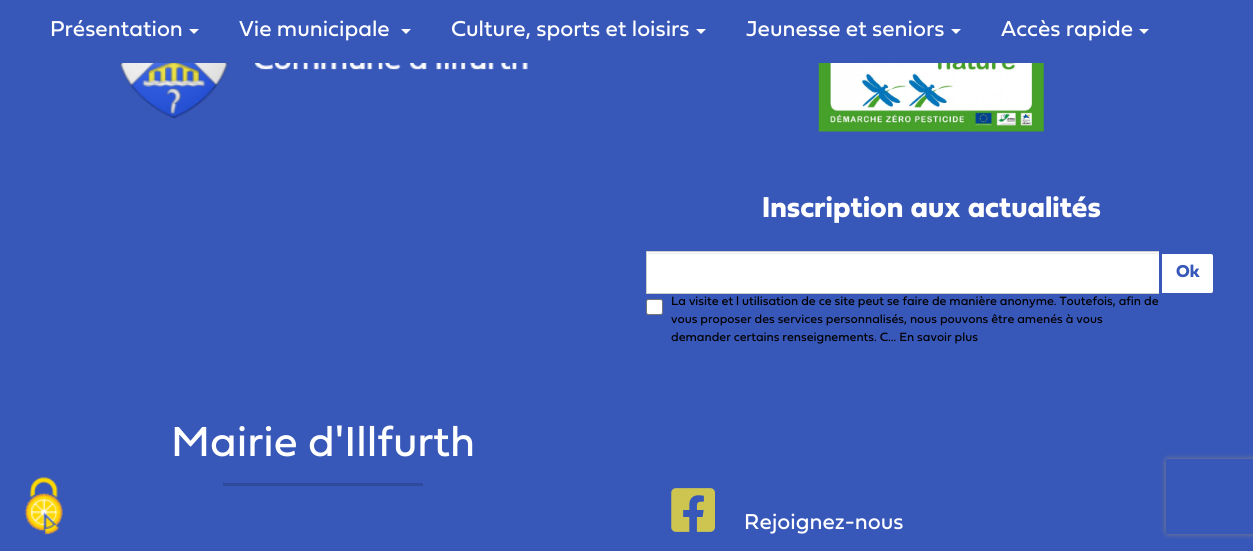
import math
import cairo



def rounded_rect(context, x, y, w, h, r):
    context.new_sub_path()
    for i, (u, v) in enumerate([(x + w - r, y + h - r), (x + r, y + h - r), (x + r, y + r), (x + w - r, y + r)]):
        context.arc(u, v, r, i * math.pi / 2, (i + 1) * math.pi / 2)
    context.close_path()


def draw_shadow(context, x, y, w, h, r, blur, alpha):
    context.push_group_with_content(cairo.Content.ALPHA)
    context.set_operator(cairo.Operator.SOURCE)
    for i in range(15, -16, -2):
        e = blur * i / 6
        if min(w, h) + 2 * e > 0:
            context.set_source_rgba(0, 0, 0, alpha * math.erfc((i - 1) / 8.5) / 2)
            rounded_rect(context, x - e, y - e, w + 2 * e, h + 2 * e, max(0, min(r + e + blur * .6, min(w, h) / 2 + e)))
            context.fill()
    context.mask(context.pop_group())


def draw_image(context, path, x, y, w, h):
    context.save()
    context.set_source_surface(cairo.ImageSurface.create_from_png(path), x, y)
    context.rectangle(x, y, w, h)
    context.fill()
    context.restore()


def draw(context):
    context.set_source_rgb(55 / 255, 87 / 255, 185 / 255)
    context.paint()
    context.set_source_rgb(1, 1, 1)
    context.new_path()
    context.move_to(189, 29)
    context.line_to(199, 29)
    context.line_to(194, 34)
    context.close_path()
    context.fill()
    context.new_path()
    context.move_to(401, 29)
    context.line_to(411, 29)
    context.line_to(406, 34)
    context.close_path()
    context.fill()
    context.new_path()
    context.move_to(696, 29)
    context.line_to(706, 29)
    context.line_to(701, 34)
    context.close_path()
    context.fill()
    context.new_path()
    context.move_to(951, 29)
    context.line_to(961, 29)
    context.line_to(956, 34)
    context.close_path()
    context.fill()
    context.new_path()
    context.move_to(1139, 29)
    context.line_to(1149, 29)
    context.line_to(1144, 34)
    context.close_path()
    context.fill()
    draw_image(context, "images/1.png", 24, 477, 39, 58)
    draw_image(context, "images/2.png", 119, 63, 409, 55)
    draw_image(context, "images/3.png", 818, 63, 226, 69)
    context.rectangle(647, 252, 512, 41)
    context.fill()
    context.set_source_rgb(236 / 255, 236 / 255, 236 / 255)
    context.rectangle(648, 253, 511, 1)
    context.fill()
    context.rectangle(646.5, 251.5, 513, 42)
    context.set_source_rgb(204 / 255, 204 / 255, 204 / 255)
    context.set_line_width(1)
    context.stroke()
    context.set_source_rgb(1, 1, 1)
    context.new_path()
    context.move_to(1160.5, 252.5)
    context.line_to(1211, 252.5)
    context.curve_to(1213, 252.5, 1214.5, 254, 1214.5, 256)
    context.line_to(1214.5, 291)
    context.curve_to(1214.5, 293, 1213, 294.5, 1211, 294.5)
    context.line_to(1160.5, 294.5)
    context.close_path()
    context.fill_preserve()
    context.set_source_rgb(55 / 255, 87 / 255, 185 / 255)
    context.set_line_width(3)
    context.stroke()
    context.set_source_rgb(1, 1, 1)
    rounded_rect(context, 646.5, 299.5, 16, 15, 2)
    context.fill_preserve()
    context.set_source_rgb(118 / 255, 118 / 255, 118 / 255)
    context.set_line_width(1)
    context.stroke()
    context.set_source_rgb(47 / 255, 74 / 255, 157 / 255)
    context.rectangle(223, 483, 200, 3)
    context.fill()
    draw_image(context, "images/4.png", 671, 488, 44, 44)
    context.save()
    context.set_fill_rule(cairo.FillRule.EVEN_ODD)
    context.new_path()
    context.move_to(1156, 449)
    context.line_to(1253, 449)
    context.line_to(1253, 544)
    context.line_to(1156, 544)
    context.close_path()
    context.move_to(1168.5, 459)
    context.line_to(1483.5, 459)
    context.curve_to(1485, 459, 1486, 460, 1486, 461.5)
    context.line_to(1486, 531.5)
    context.curve_to(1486, 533, 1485, 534, 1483.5, 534)
    context.line_to(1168.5, 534)
    context.curve_to(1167, 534, 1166, 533, 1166, 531.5)
    context.line_to(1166, 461.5)
    context.curve_to(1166, 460, 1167, 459, 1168.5, 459)
    context.close_path()
    context.clip()
    context.set_source_rgb(128 / 255, 128 / 255, 128 / 255)
    draw_shadow(context, 1166, 459, 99, 75, 2.5, 3, 1)
    context.restore()
    context.select_font_face("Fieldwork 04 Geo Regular")
    context.set_font_size(22.5)
    context.set_source_rgb(1, 1, 1)
    context.move_to(50, 36)
    context.show_text("Présentation")
    context.move_to(239, 36)
    context.show_text("Vie municipale")
    context.move_to(451, 36)
    context.show_text("Culture, sports et loisirs")
    context.move_to(746, 36)
    context.show_text("Jeunesse et seniors")
    context.move_to(1001, 36)
    context.show_text("Accès rapide")
    context.select_font_face("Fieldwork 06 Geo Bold", cairo.FontSlant.NORMAL, cairo.FontWeight.BOLD)
    context.set_font_size(30)
    context.move_to(762, 217)
    context.show_text("Inscription aux actualités")
    context.set_font_size(18)
    context.set_source_rgb(55 / 255, 87 / 255, 185 / 255)
    context.move_to(1176, 277)
    context.show_text("Ok")
    context.select_font_face("Fieldwork 04 Geo Regular")
    context.set_font_size(12.5)
    context.set_source_rgb(0, 0, 0)
    context.move_to(671, 305)
    context.show_text("La visite et l utilisation de ce site peut se faire de manière anonyme. Toutefois, afin de")
    context.move_to(671, 323)
    context.show_text("vous proposer des services personnalisés, nous pouvons être amenés à vous")
    context.move_to(671, 341)
    context.show_text("demander certains renseignements. C... En savoir plus")
    context.set_font_size(43.75)
    context.set_source_rgb(1, 1, 1)
    context.move_to(171, 456)
    context.show_text("Mairie d'Illfurth")
    context.set_font_size(22.5)
    context.move_to(744, 529)
    context.show_text("Rejoignez-nous")


surface = cairo.ImageSurface(cairo.Format.RGB24, 1253, 551)
context = cairo.Context(surface)
options = cairo.FontOptions()
options.set_hint_metrics(cairo.HintMetrics.OFF)
options.set_hint_style(cairo.HintStyle.NONE)
context.set_font_options(options)
context.set_miter_limit(4)
draw(context)
surface.write_to_png("out.png")
